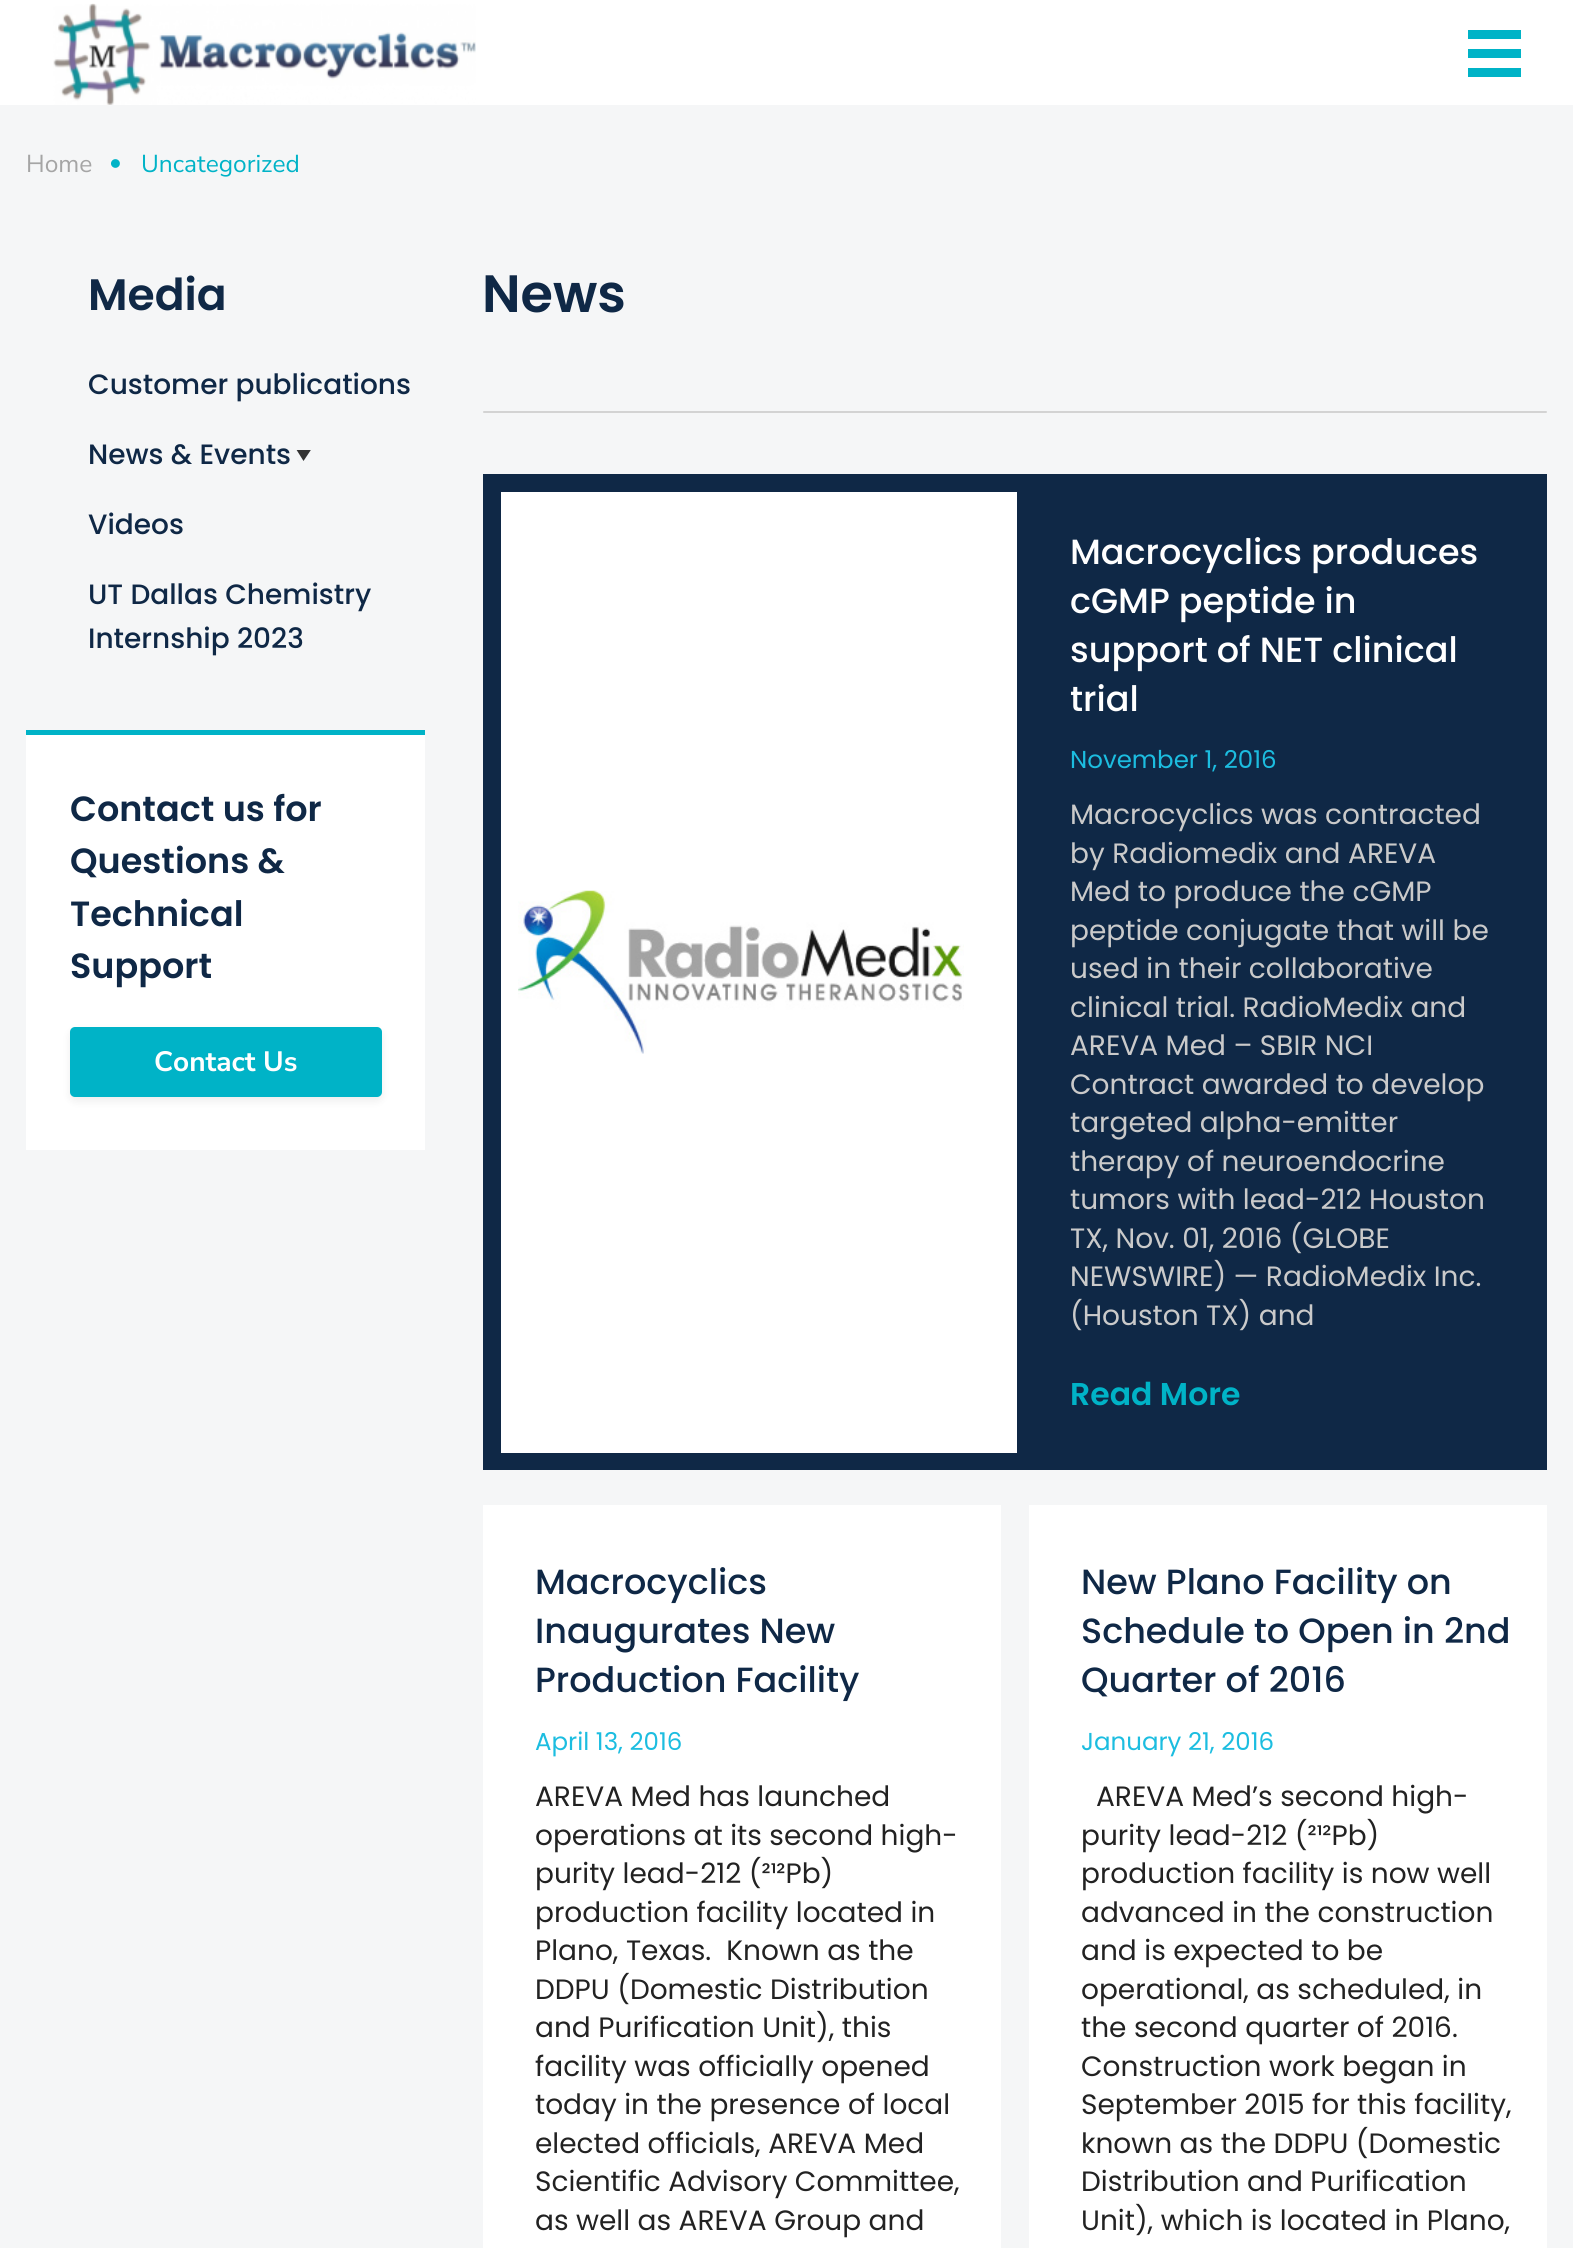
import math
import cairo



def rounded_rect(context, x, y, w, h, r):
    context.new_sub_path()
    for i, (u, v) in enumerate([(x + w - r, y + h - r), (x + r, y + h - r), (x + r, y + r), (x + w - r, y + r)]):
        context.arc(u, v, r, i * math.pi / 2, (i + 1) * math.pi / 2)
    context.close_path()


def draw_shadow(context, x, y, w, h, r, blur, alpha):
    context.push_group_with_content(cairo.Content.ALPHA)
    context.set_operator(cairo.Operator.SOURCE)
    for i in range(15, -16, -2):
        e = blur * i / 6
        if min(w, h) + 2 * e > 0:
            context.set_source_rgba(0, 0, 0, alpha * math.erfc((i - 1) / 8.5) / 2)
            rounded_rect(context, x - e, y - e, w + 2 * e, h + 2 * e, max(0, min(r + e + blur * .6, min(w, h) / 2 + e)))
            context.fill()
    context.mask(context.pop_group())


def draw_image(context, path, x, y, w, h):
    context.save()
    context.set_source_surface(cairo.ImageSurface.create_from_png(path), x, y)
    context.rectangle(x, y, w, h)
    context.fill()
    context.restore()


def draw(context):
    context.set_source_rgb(1, 1, 1)
    context.paint()
    draw_image(context, "images/1.png", 53, 3, 423, 102)
    context.set_source_rgb(0, 179 / 255, 199 / 255)
    context.rectangle(1468, 30, 53, 9)
    context.fill()
    context.rectangle(1468, 49, 53, 9)
    context.fill()
    context.rectangle(1468, 68, 53, 9)
    context.fill()
    context.set_source_rgb(245 / 255, 246 / 255, 247 / 255)
    context.rectangle(0, 105, 1573, 2143)
    context.fill()
    context.save()
    context.rectangle(296, 450, 16, 12)
    context.clip()
    context.set_source_rgb(51 / 255, 51 / 255, 51 / 255)
    context.set_fill_rule(cairo.FillRule.EVEN_ODD)
    context.new_path()
    context.move_to(303.5, 461)
    context.line_to(311.5, 449)
    context.line_to(296, 449)
    context.close_path()
    context.fill()
    context.restore()
    context.set_source_rgb(1, 1, 1)
    context.rectangle(26, 735, 399, 415)
    context.fill()
    context.set_source_rgb(0, 179 / 255, 199 / 255)
    context.rectangle(26, 730, 399, 5)
    context.fill()
    context.set_source_rgb(0, 0, 0)
    draw_shadow(context, 70, 1031, 312, 70, 5, 4.5, 0.07)
    context.set_source_rgb(0, 179 / 255, 199 / 255)
    rounded_rect(context, 70, 1027, 312, 70, 5)
    context.fill()
    context.set_source_rgb(211 / 255, 211 / 255, 211 / 255)
    rounded_rect(context, 483, 411, 1064, 2, 1)
    context.fill()
    context.set_source_rgb(15 / 255, 40 / 255, 70 / 255)
    context.rectangle(483, 474, 1064, 996)
    context.fill()
    context.set_source_rgb(1, 1, 1)
    context.rectangle(501, 492, 516, 961)
    context.fill()
    draw_image(context, "images/2.png", 518, 890, 446, 164)
    context.rectangle(483, 1505, 518, 743)
    context.fill()
    context.rectangle(1029, 1505, 518, 743)
    context.fill()
    context.select_font_face("Nunito Sans")
    context.set_font_size(24.5)
    context.set_source_rgb(165 / 255, 165 / 255, 165 / 255)
    context.move_to(26, 172)
    context.show_text("Home")
    context.set_source_rgb(0, 179 / 255, 199 / 255)
    context.move_to(109, 170)
    context.show_text("•")
    context.move_to(141, 172)
    context.show_text("Uncategorized")
    context.select_font_face("Poppins SemiBold")
    context.set_font_size(44)
    context.set_source_rgb(15 / 255, 40 / 255, 70 / 255)
    context.move_to(88, 310)
    context.show_text("Media")
    context.select_font_face("Poppins Medium")
    context.set_font_size(28)
    context.move_to(88, 394)
    context.show_text("Customer publications")
    context.move_to(88, 464)
    context.show_text("News & Events")
    context.move_to(88, 534)
    context.show_text("Videos")
    context.move_to(88, 604)
    context.show_text("UT Dallas Chemistry")
    context.move_to(88, 648)
    context.show_text("Internship 2023")
    context.select_font_face("Poppins SemiBold")
    context.set_font_size(35)
    context.move_to(70, 821)
    context.show_text("Contact us for")
    context.move_to(70, 873)
    context.show_text("Questions &")
    context.move_to(70, 926)
    context.show_text("Technical")
    context.move_to(70, 978)
    context.show_text("Support")
    context.select_font_face("Nunito Sans", cairo.FontSlant.NORMAL, cairo.FontWeight.BOLD)
    context.set_font_size(28)
    context.set_source_rgb(1, 1, 1)
    context.move_to(154, 1071)
    context.show_text("Contact Us")
    context.select_font_face("Poppins SemiBold")
    context.set_font_size(52.5)
    context.set_source_rgb(15 / 255, 40 / 255, 70 / 255)
    context.move_to(482, 312)
    context.show_text("News")
    context.select_font_face("Poppins Medium")
    context.set_font_size(35)
    context.set_source_rgb(1, 1, 1)
    context.move_to(1070, 564)
    context.show_text("Macrocyclics produces")
    context.move_to(1070, 613)
    context.show_text("cGMP peptide in")
    context.move_to(1070, 662)
    context.show_text("support of NET clinical")
    context.move_to(1070, 711)
    context.show_text("trial")
    context.select_font_face("Poppins")
    context.set_font_size(24.5)
    context.set_source_rgb(28 / 255, 189 / 255, 224 / 255)
    context.move_to(1070, 768)
    context.show_text("November 1, 2016")
    context.set_font_size(28)
    context.set_source_rgb(202 / 255, 202 / 255, 202 / 255)
    context.move_to(1070, 824)
    context.show_text("Macrocyclics was contracted")
    context.move_to(1070, 863)
    context.show_text("by Radiomedix and AREVA")
    context.move_to(1070, 901)
    context.show_text("Med to produce the cGMP")
    context.move_to(1070, 940)
    context.show_text("peptide conjugate that will be")
    context.move_to(1070, 978)
    context.show_text("used in their collaborative")
    context.move_to(1070, 1017)
    context.show_text("clinical trial. RadioMedix and")
    context.move_to(1070, 1055)
    context.show_text("AREVA Med – SBIR NCI")
    context.move_to(1070, 1094)
    context.show_text("Contract awarded to develop")
    context.move_to(1070, 1132)
    context.show_text("targeted alpha-emitter")
    context.move_to(1070, 1171)
    context.show_text("therapy of neuroendocrine")
    context.move_to(1070, 1209)
    context.show_text("tumors with lead-212 Houston")
    context.move_to(1070, 1248)
    context.show_text("TX, Nov. 01, 2016 (GLOBE")
    context.move_to(1070, 1286)
    context.show_text("NEWSWIRE) — RadioMedix Inc.")
    context.move_to(1070, 1325)
    context.show_text("(Houston TX) and")
    context.select_font_face("Poppins SemiBold")
    context.set_font_size(31.5)
    context.set_source_rgb(0, 179 / 255, 199 / 255)
    context.move_to(1070, 1405)
    context.show_text("Read More")
    context.select_font_face("Poppins Medium")
    context.set_font_size(35)
    context.set_source_rgb(15 / 255, 40 / 255, 70 / 255)
    context.move_to(535, 1594)
    context.show_text("Macrocyclics")
    context.move_to(535, 1643)
    context.show_text("Inaugurates New")
    context.move_to(535, 1692)
    context.show_text("Production Facility")
    context.select_font_face("Poppins")
    context.set_font_size(24.5)
    context.set_source_rgb(28 / 255, 189 / 255, 224 / 255)
    context.move_to(535, 1750)
    context.show_text("April 13, 2016")
    context.set_font_size(28)
    context.set_source_rgb(34 / 255, 34 / 255, 34 / 255)
    context.move_to(535, 1806)
    context.show_text("AREVA Med has launched")
    context.move_to(535, 1845)
    context.show_text("operations at its second high-")
    context.move_to(535, 1883)
    context.show_text("purity lead-212 (²¹²Pb)")
    context.move_to(535, 1922)
    context.show_text("production facility located in")
    context.move_to(535, 1960)
    context.show_text("Plano, Texas.  Known as the")
    context.move_to(535, 1999)
    context.show_text("DDPU (Domestic Distribution")
    context.move_to(535, 2037)
    context.show_text("and Purification Unit), this")
    context.move_to(535, 2076)
    context.show_text("facility was officially opened")
    context.move_to(535, 2114)
    context.show_text("today in the presence of local")
    context.move_to(535, 2153)
    context.show_text("elected officials, AREVA Med")
    context.move_to(535, 2191)
    context.show_text("Scientific Advisory Committee,")
    context.move_to(535, 2230)
    context.show_text("as well as AREVA Group and")
    context.select_font_face("Poppins Medium")
    context.set_font_size(35)
    context.set_source_rgb(15 / 255, 40 / 255, 70 / 255)
    context.move_to(1081, 1594)
    context.show_text("New Plano Facility on")
    context.move_to(1081, 1643)
    context.show_text("Schedule to Open in 2nd")
    context.move_to(1081, 1692)
    context.show_text("Quarter of 2016")
    context.select_font_face("Poppins")
    context.set_font_size(24.5)
    context.set_source_rgb(28 / 255, 189 / 255, 224 / 255)
    context.move_to(1081, 1750)
    context.show_text("January 21, 2016")
    context.set_font_size(28)
    context.set_source_rgb(34 / 255, 34 / 255, 34 / 255)
    context.move_to(1096, 1806)
    context.show_text("AREVA Med’s second high-")
    context.move_to(1081, 1845)
    context.show_text("purity lead-212 (²¹²Pb)")
    context.move_to(1081, 1883)
    context.show_text("production facility is now well")
    context.move_to(1081, 1922)
    context.show_text("advanced in the construction")
    context.move_to(1081, 1960)
    context.show_text("and is expected to be")
    context.move_to(1081, 1999)
    context.show_text("operational, as scheduled, in")
    context.move_to(1081, 2037)
    context.show_text("the second quarter of 2016.")
    context.move_to(1081, 2076)
    context.show_text("Construction work began in")
    context.move_to(1081, 2114)
    context.show_text("September 2015 for this facility,")
    context.move_to(1081, 2153)
    context.show_text("known as the DDPU (Domestic")
    context.move_to(1081, 2191)
    context.show_text("Distribution and Purification")
    context.move_to(1081, 2230)
    context.show_text("Unit), which is located in Plano,")


surface = cairo.ImageSurface(cairo.Format.RGB24, 1573, 2248)
context = cairo.Context(surface)
options = cairo.FontOptions()
options.set_hint_metrics(cairo.HintMetrics.OFF)
options.set_hint_style(cairo.HintStyle.NONE)
context.set_font_options(options)
context.set_miter_limit(4)
draw(context)
surface.write_to_png("out.png")
